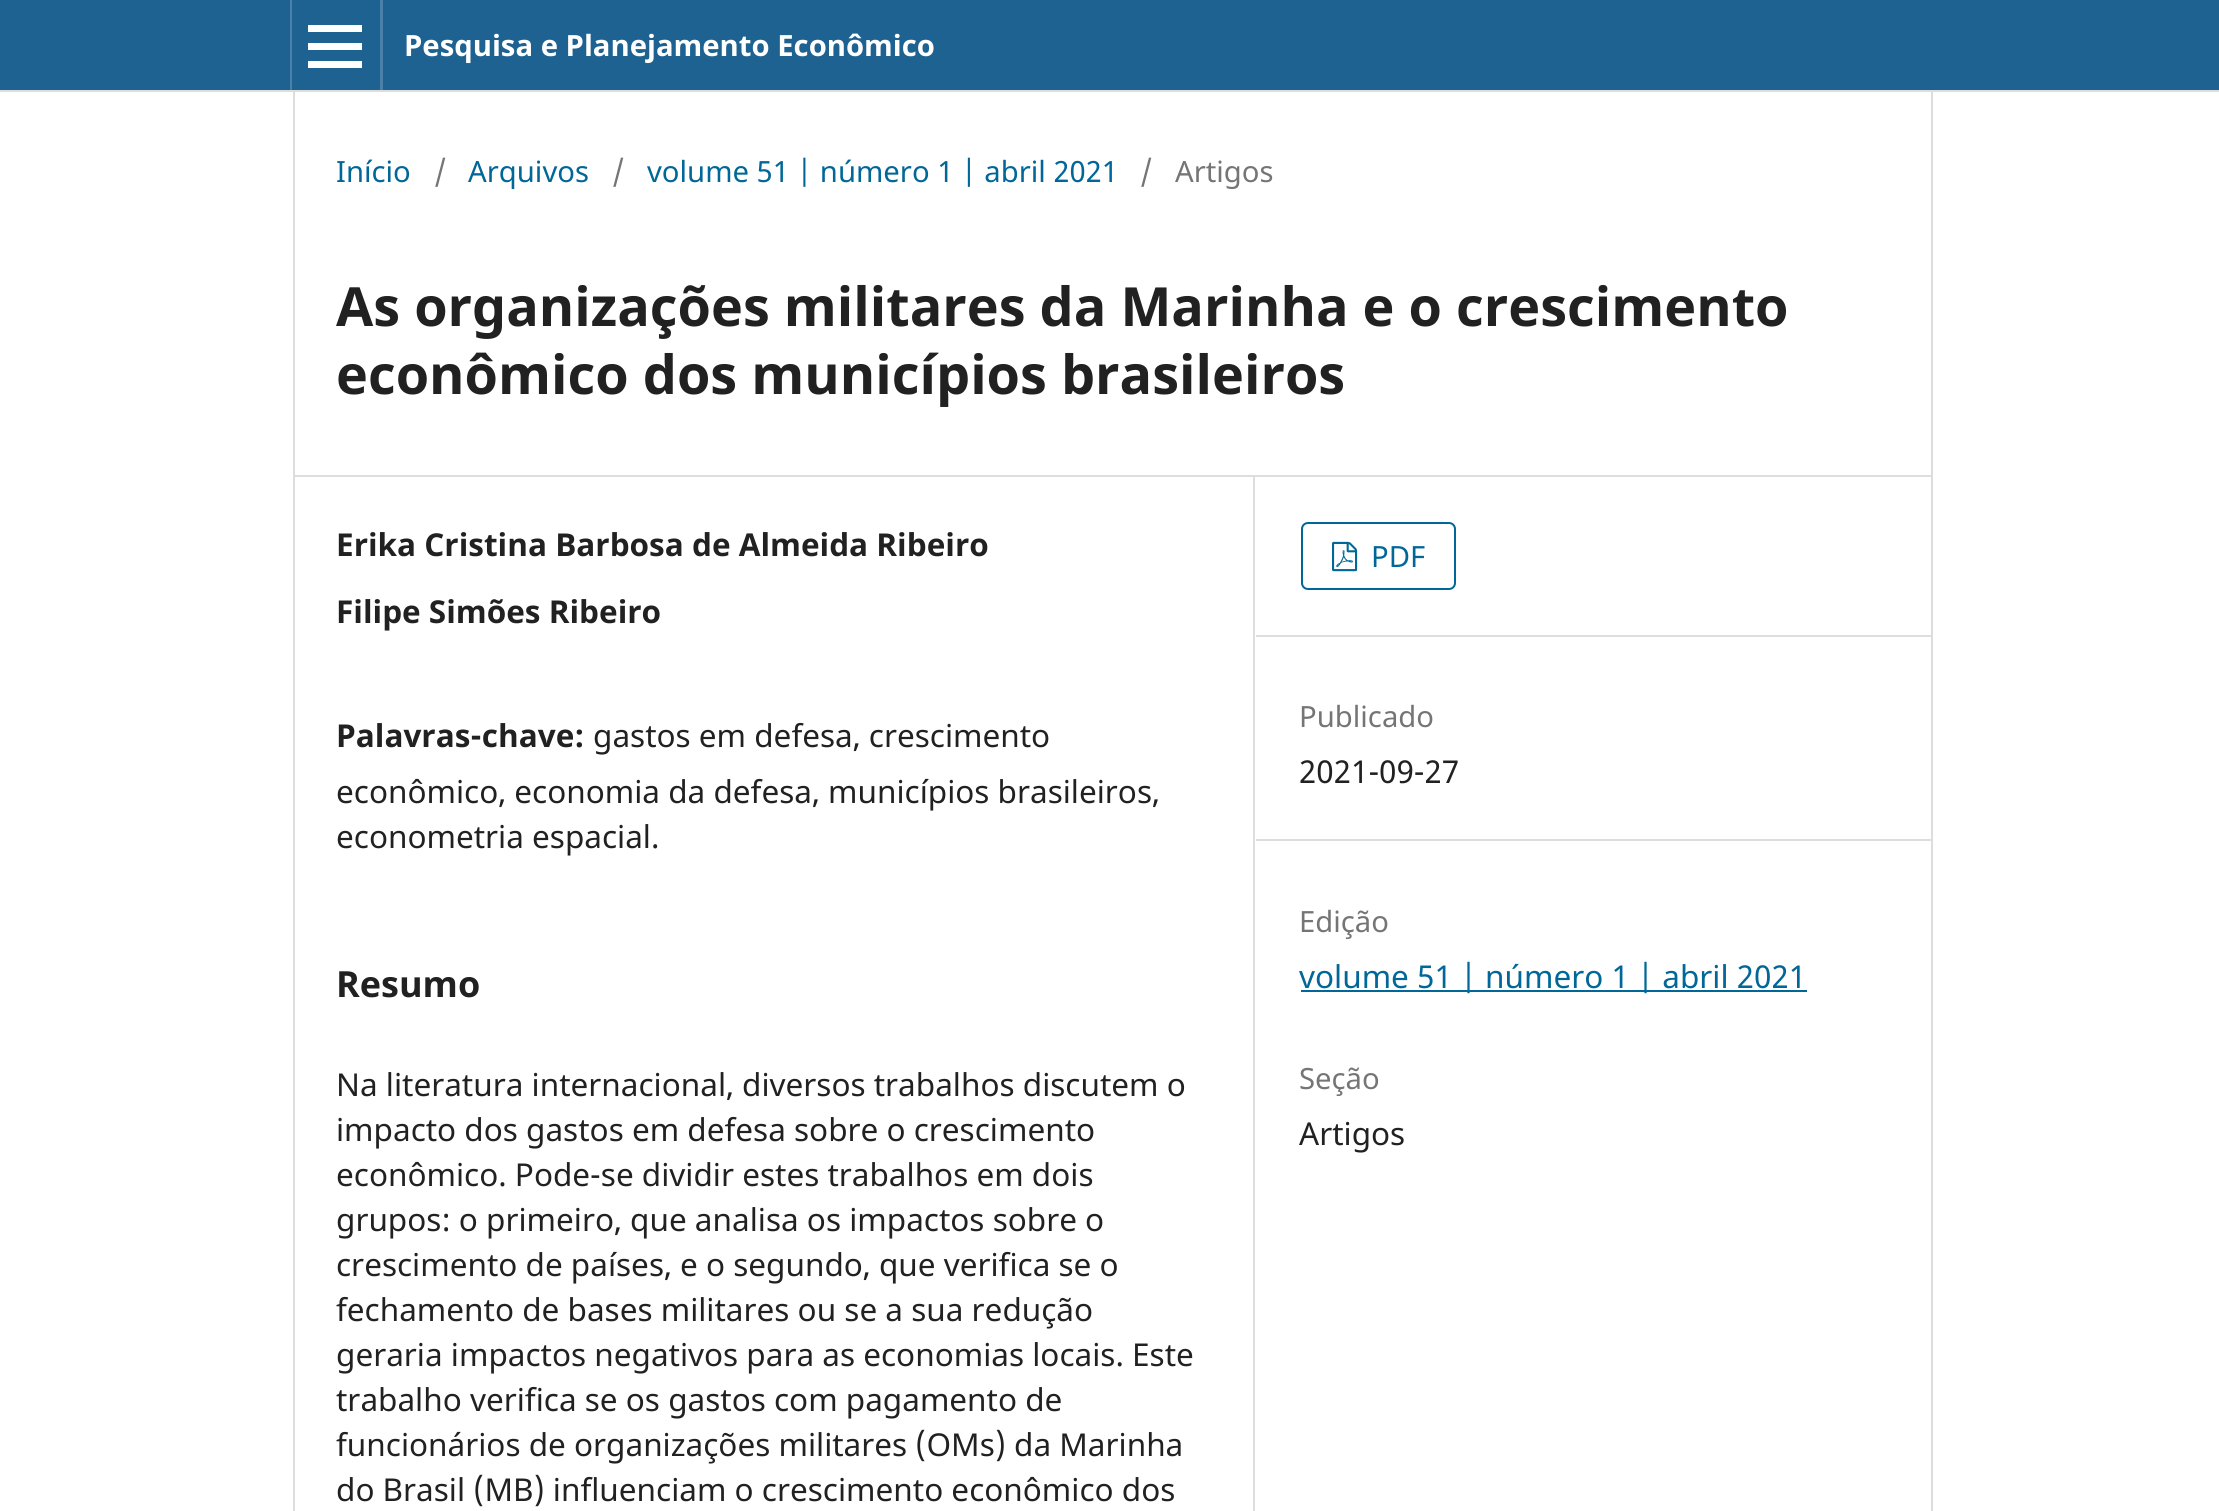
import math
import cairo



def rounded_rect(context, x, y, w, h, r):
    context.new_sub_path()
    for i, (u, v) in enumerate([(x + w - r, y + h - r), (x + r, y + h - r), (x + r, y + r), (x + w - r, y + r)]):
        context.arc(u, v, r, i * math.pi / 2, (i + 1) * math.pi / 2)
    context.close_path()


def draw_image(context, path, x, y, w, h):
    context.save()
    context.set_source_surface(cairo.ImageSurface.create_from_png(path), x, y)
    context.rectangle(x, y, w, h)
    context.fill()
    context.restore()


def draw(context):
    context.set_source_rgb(1, 1, 1)
    context.paint()
    context.set_source_rgb(30 / 255, 98 / 255, 146 / 255)
    context.rectangle(0, 0, 2219, 90)
    context.fill()
    context.set_source_rgb(221 / 255, 221 / 255, 221 / 255)
    context.rectangle(0, 90, 2219, 2)
    context.fill()
    context.set_source_rgb(75 / 255, 129 / 255, 168 / 255)
    context.rectangle(290, 0, 2, 90)
    context.fill()
    context.rectangle(380, 0, 3, 90)
    context.fill()
    context.set_source_rgb(1, 1, 1)
    context.rectangle(308, 61, 54, 7)
    context.fill()
    context.rectangle(308, 25, 54, 7)
    context.fill()
    context.rectangle(308, 43, 54, 7)
    context.fill()
    context.set_source_rgb(221 / 255, 221 / 255, 221 / 255)
    context.rectangle(293, 475, 1638, 2)
    context.fill()
    context.rectangle(293, 92, 2, 1419)
    context.fill()
    context.rectangle(1253, 477, 2, 1034)
    context.fill()
    context.rectangle(1256, 635, 675, 2)
    context.fill()
    rounded_rect(context, 1302, 523, 153, 66, 6)
    context.set_source_rgb(0, 103 / 255, 152 / 255)
    context.stroke()
    draw_image(context, "images/1.png", 1332, 541, 26, 31)
    context.set_source_rgb(221 / 255, 221 / 255, 221 / 255)
    context.rectangle(1256, 839, 675, 2)
    context.fill()
    context.set_source_rgb(0, 103 / 255, 152 / 255)
    context.rectangle(1301, 990, 506, 2)
    context.fill()
    context.set_source_rgb(221 / 255, 221 / 255, 221 / 255)
    context.rectangle(1931, 92, 2, 1419)
    context.fill()
    context.select_font_face("Noto Sans", cairo.FontSlant.NORMAL, cairo.FontWeight.BOLD)
    context.set_font_size(29.25)
    context.set_source_rgb(1, 1, 1)
    context.move_to(404, 56)
    context.show_text("Pesquisa e Planejamento Econômico")
    context.select_font_face("Noto Sans")
    context.set_source_rgb(0, 103 / 255, 152 / 255)
    context.move_to(336, 182)
    context.show_text("Início")
    context.set_source_rgb(117 / 255, 117 / 255, 117 / 255)
    context.move_to(434, 182)
    context.show_text("/")
    context.set_source_rgb(0, 103 / 255, 152 / 255)
    context.move_to(468, 182)
    context.show_text("Arquivos")
    context.set_source_rgb(117 / 255, 117 / 255, 117 / 255)
    context.move_to(612, 182)
    context.show_text("/")
    context.set_source_rgb(0, 103 / 255, 152 / 255)
    context.move_to(647, 182)
    context.show_text("volume 51 | número 1 | abril 2021")
    context.set_source_rgb(117 / 255, 117 / 255, 117 / 255)
    context.move_to(1140, 182)
    context.show_text("/")
    context.move_to(1175, 182)
    context.show_text("Artigos")
    context.select_font_face("Noto Sans", cairo.FontSlant.NORMAL, cairo.FontWeight.BOLD)
    context.set_font_size(54)
    context.set_source_rgb(33 / 255, 33 / 255, 33 / 255)
    context.move_to(336, 326)
    context.show_text("As organizações militares da Marinha e o crescimento")
    context.move_to(336, 394)
    context.show_text("econômico dos municípios brasileiros")
    context.set_font_size(31.5)
    context.move_to(336, 556)
    context.show_text("Erika Cristina Barbosa de Almeida Ribeiro")
    context.move_to(336, 623)
    context.show_text("Filipe Simões Ribeiro")
    context.move_to(336, 747)
    context.show_text("Palavras-chave:")
    context.select_font_face("Noto Sans")
    context.move_to(593, 747)
    context.show_text("gastos em defesa, crescimento")
    context.move_to(336, 803)
    context.show_text("econômico, economia da defesa, municípios brasileiros,")
    context.move_to(336, 848)
    context.show_text("econometria espacial.")
    context.select_font_face("Noto Sans", cairo.FontSlant.NORMAL, cairo.FontWeight.BOLD)
    context.set_font_size(36)
    context.move_to(336, 997)
    context.show_text("Resumo")
    context.select_font_face("Noto Sans")
    context.set_font_size(31.5)
    context.move_to(336, 1096)
    context.show_text("Na literatura internacional, diversos trabalhos discutem o")
    context.move_to(336, 1141)
    context.show_text("impacto dos gastos em defesa sobre o crescimento")
    context.move_to(336, 1186)
    context.show_text("econômico. Pode-se dividir estes trabalhos em dois")
    context.move_to(336, 1231)
    context.show_text("grupos: o primeiro, que analisa os impactos sobre o")
    context.move_to(336, 1276)
    context.show_text("crescimento de países, e o segundo, que verifica se o")
    context.move_to(336, 1321)
    context.show_text("fechamento de bases militares ou se a sua redução")
    context.move_to(336, 1366)
    context.show_text("geraria impactos negativos para as economias locais. Este")
    context.move_to(336, 1411)
    context.show_text("trabalho verifica se os gastos com pagamento de")
    context.move_to(336, 1456)
    context.show_text("funcionários de organizações militares (OMs) da Marinha")
    context.move_to(336, 1501)
    context.show_text("do Brasil (MB) influenciam o crescimento econômico dos")
    context.set_font_size(29.25)
    context.set_source_rgb(0, 103 / 255, 152 / 255)
    context.move_to(1371, 567)
    context.show_text("PDF")
    context.set_source_rgb(117 / 255, 117 / 255, 117 / 255)
    context.move_to(1299, 727)
    context.show_text("Publicado")
    context.set_font_size(31.5)
    context.set_source_rgb(33 / 255, 33 / 255, 33 / 255)
    context.move_to(1299, 783)
    context.show_text("2021-09-27")
    context.set_font_size(29.25)
    context.set_source_rgb(117 / 255, 117 / 255, 117 / 255)
    context.move_to(1299, 932)
    context.show_text("Edição")
    context.set_font_size(31.5)
    context.set_source_rgb(0, 103 / 255, 152 / 255)
    context.move_to(1299, 988)
    context.show_text("volume 51 | número 1 | abril 2021")
    context.set_font_size(29.25)
    context.set_source_rgb(117 / 255, 117 / 255, 117 / 255)
    context.move_to(1299, 1089)
    context.show_text("Seção")
    context.set_font_size(31.5)
    context.set_source_rgb(33 / 255, 33 / 255, 33 / 255)
    context.move_to(1299, 1145)
    context.show_text("Artigos")


surface = cairo.ImageSurface(cairo.Format.RGB24, 2219, 1511)
context = cairo.Context(surface)
options = cairo.FontOptions()
options.set_hint_metrics(cairo.HintMetrics.OFF)
options.set_hint_style(cairo.HintStyle.NONE)
context.set_font_options(options)
context.set_miter_limit(4)
draw(context)
surface.write_to_png("out.png")
